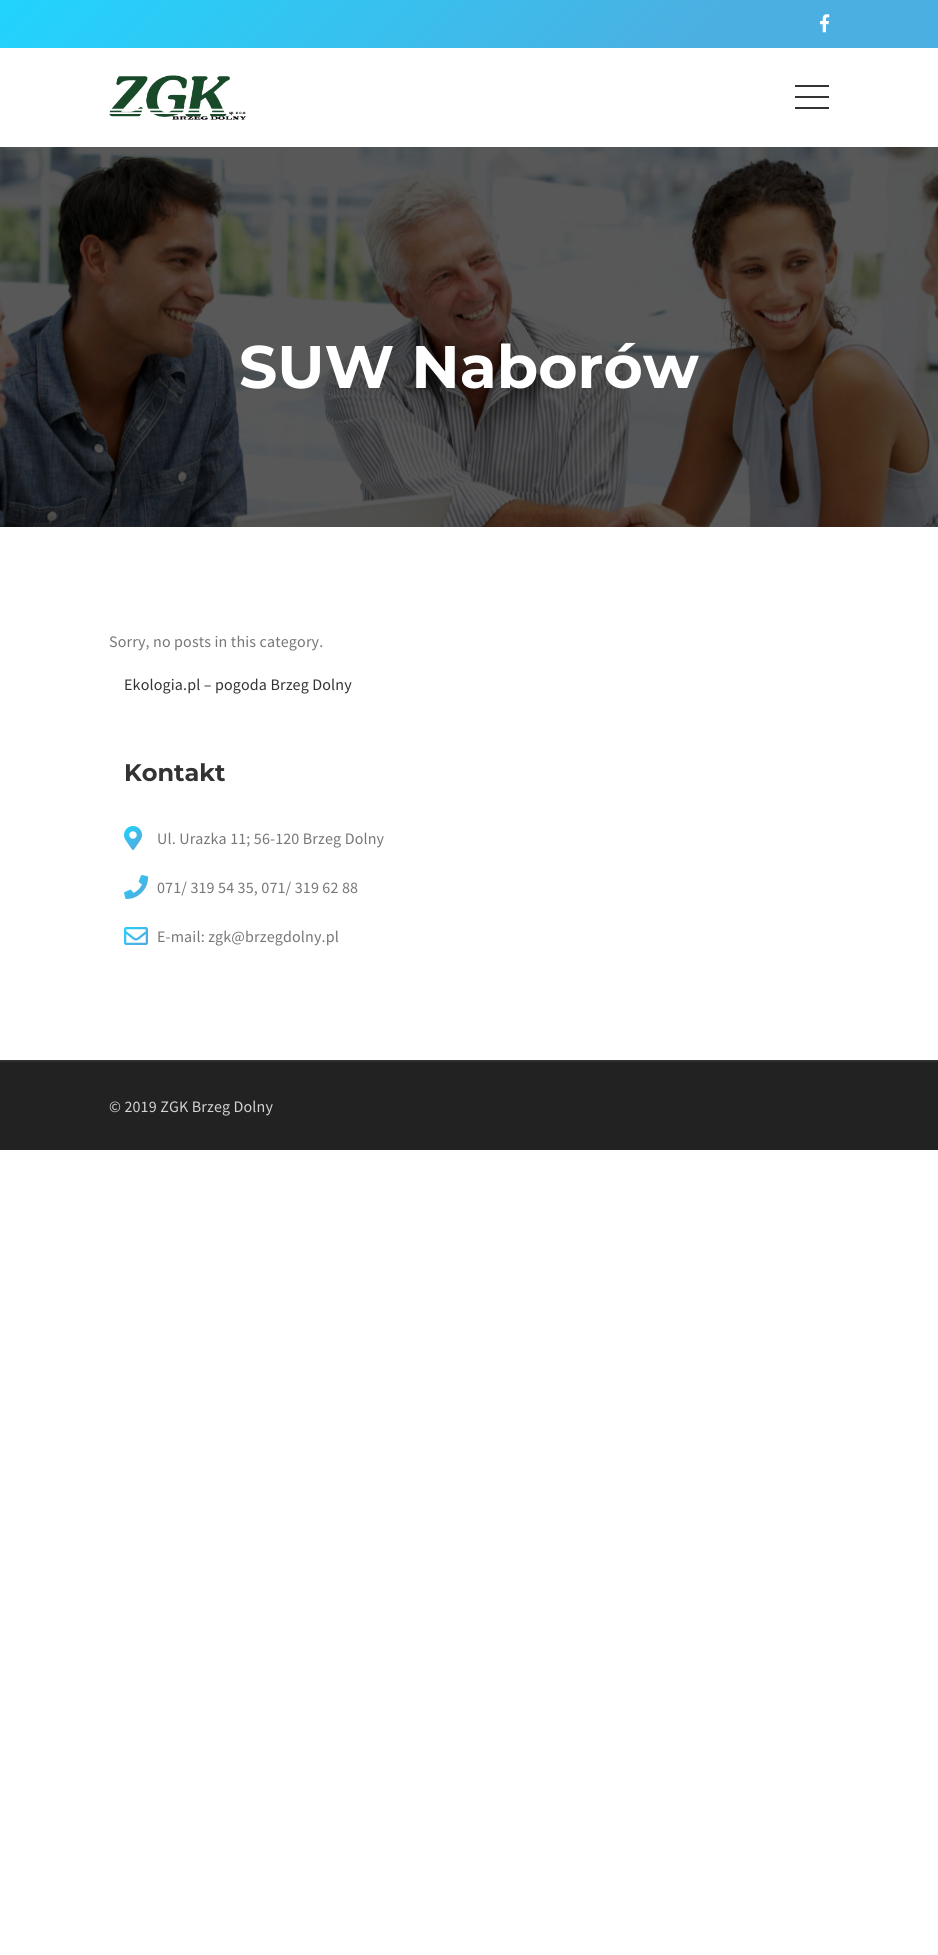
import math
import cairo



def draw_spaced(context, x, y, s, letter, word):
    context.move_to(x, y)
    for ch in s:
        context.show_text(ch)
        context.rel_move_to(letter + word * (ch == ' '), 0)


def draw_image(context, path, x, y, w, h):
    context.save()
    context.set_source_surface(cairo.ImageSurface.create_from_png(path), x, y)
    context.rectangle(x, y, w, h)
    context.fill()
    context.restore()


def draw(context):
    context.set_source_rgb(1, 1, 1)
    context.paint()
    gradient = cairo.LinearGradient(222, -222, 716, 271)
    gradient.add_color_stop_rgba(0, 33 / 255, 212 / 255, 253 / 255, 1)
    gradient.add_color_stop_rgba(0.75, 76 / 255, 175 / 255, 225 / 255, 1)
    context.set_source(gradient)
    context.rectangle(0, 0, 938, 48)
    context.fill()
    draw_image(context, "images/1.png", 820, 14, 10, 19)
    draw_image(context, "images/2.png", 109, 75, 137, 45)
    context.set_source_rgb(51 / 255, 51 / 255, 51 / 255)
    context.rectangle(795, 85, 34, 2)
    context.fill()
    context.rectangle(795, 96, 34, 2)
    context.fill()
    context.rectangle(795, 107, 34, 2)
    context.fill()
    draw_image(context, "images/3.png", 0, 147, 938, 380)
    draw_image(context, "images/4.png", 124, 826, 18, 24)
    draw_image(context, "images/5.png", 124, 875, 25, 24)
    draw_image(context, "images/6.png", 124, 927, 24, 18)
    context.set_source_rgb(34 / 255, 34 / 255, 34 / 255)
    context.rectangle(0, 1062, 938, 88)
    context.fill()
    context.set_source_rgb(51 / 255, 51 / 255, 51 / 255)
    context.rectangle(0, 1060, 938, 1)
    context.fill()
    context.set_source_rgb(48 / 255, 48 / 255, 48 / 255)
    context.rectangle(0, 1061, 938, 1)
    context.fill()
    context.select_font_face("Montserrat", cairo.FontSlant.NORMAL, cairo.FontWeight.BOLD)
    context.set_font_size(60)
    context.set_source_rgb(1, 1, 1)
    context.move_to(239, 388)
    context.show_text("SUW Naborów")
    context.select_font_face("Source Sans Pro")
    context.set_font_size(16)
    context.set_source_rgb(119 / 255, 119 / 255, 119 / 255)
    draw_spaced(context, 109, 647, "Sorry, no posts in this category.", 0.15, 0)
    context.set_source_rgb(51 / 255, 51 / 255, 51 / 255)
    draw_spaced(context, 124, 690, "Ekologia.pl – pogoda Brzeg Dolny", 0.15, 0)
    context.select_font_face("Montserrat", cairo.FontSlant.NORMAL, cairo.FontWeight.BOLD)
    context.set_font_size(24)
    context.move_to(124, 781)
    context.show_text("Kontakt")
    context.select_font_face("Source Sans Pro")
    context.set_font_size(16)
    context.set_source_rgb(119 / 255, 119 / 255, 119 / 255)
    draw_spaced(context, 157, 844, "Ul. Urazka 11; 56-120 Brzeg Dolny", 0.15, 0)
    draw_spaced(context, 157, 893, "071/ 319 54 35, 071/ 319 62 88", 0.15, 0)
    draw_spaced(context, 157, 942, "E-mail: zgk@brzegdolny.pl", 0.15, 0)
    context.set_source_rgb(211 / 255, 211 / 255, 211 / 255)
    draw_spaced(context, 109, 1112, "© 2019 ZGK Brzeg Dolny", 0.15, 0)


surface = cairo.ImageSurface(cairo.Format.RGB24, 938, 1955)
context = cairo.Context(surface)
options = cairo.FontOptions()
options.set_hint_metrics(cairo.HintMetrics.OFF)
options.set_hint_style(cairo.HintStyle.NONE)
context.set_font_options(options)
context.set_miter_limit(4)
draw(context)
surface.write_to_png("out.png")
